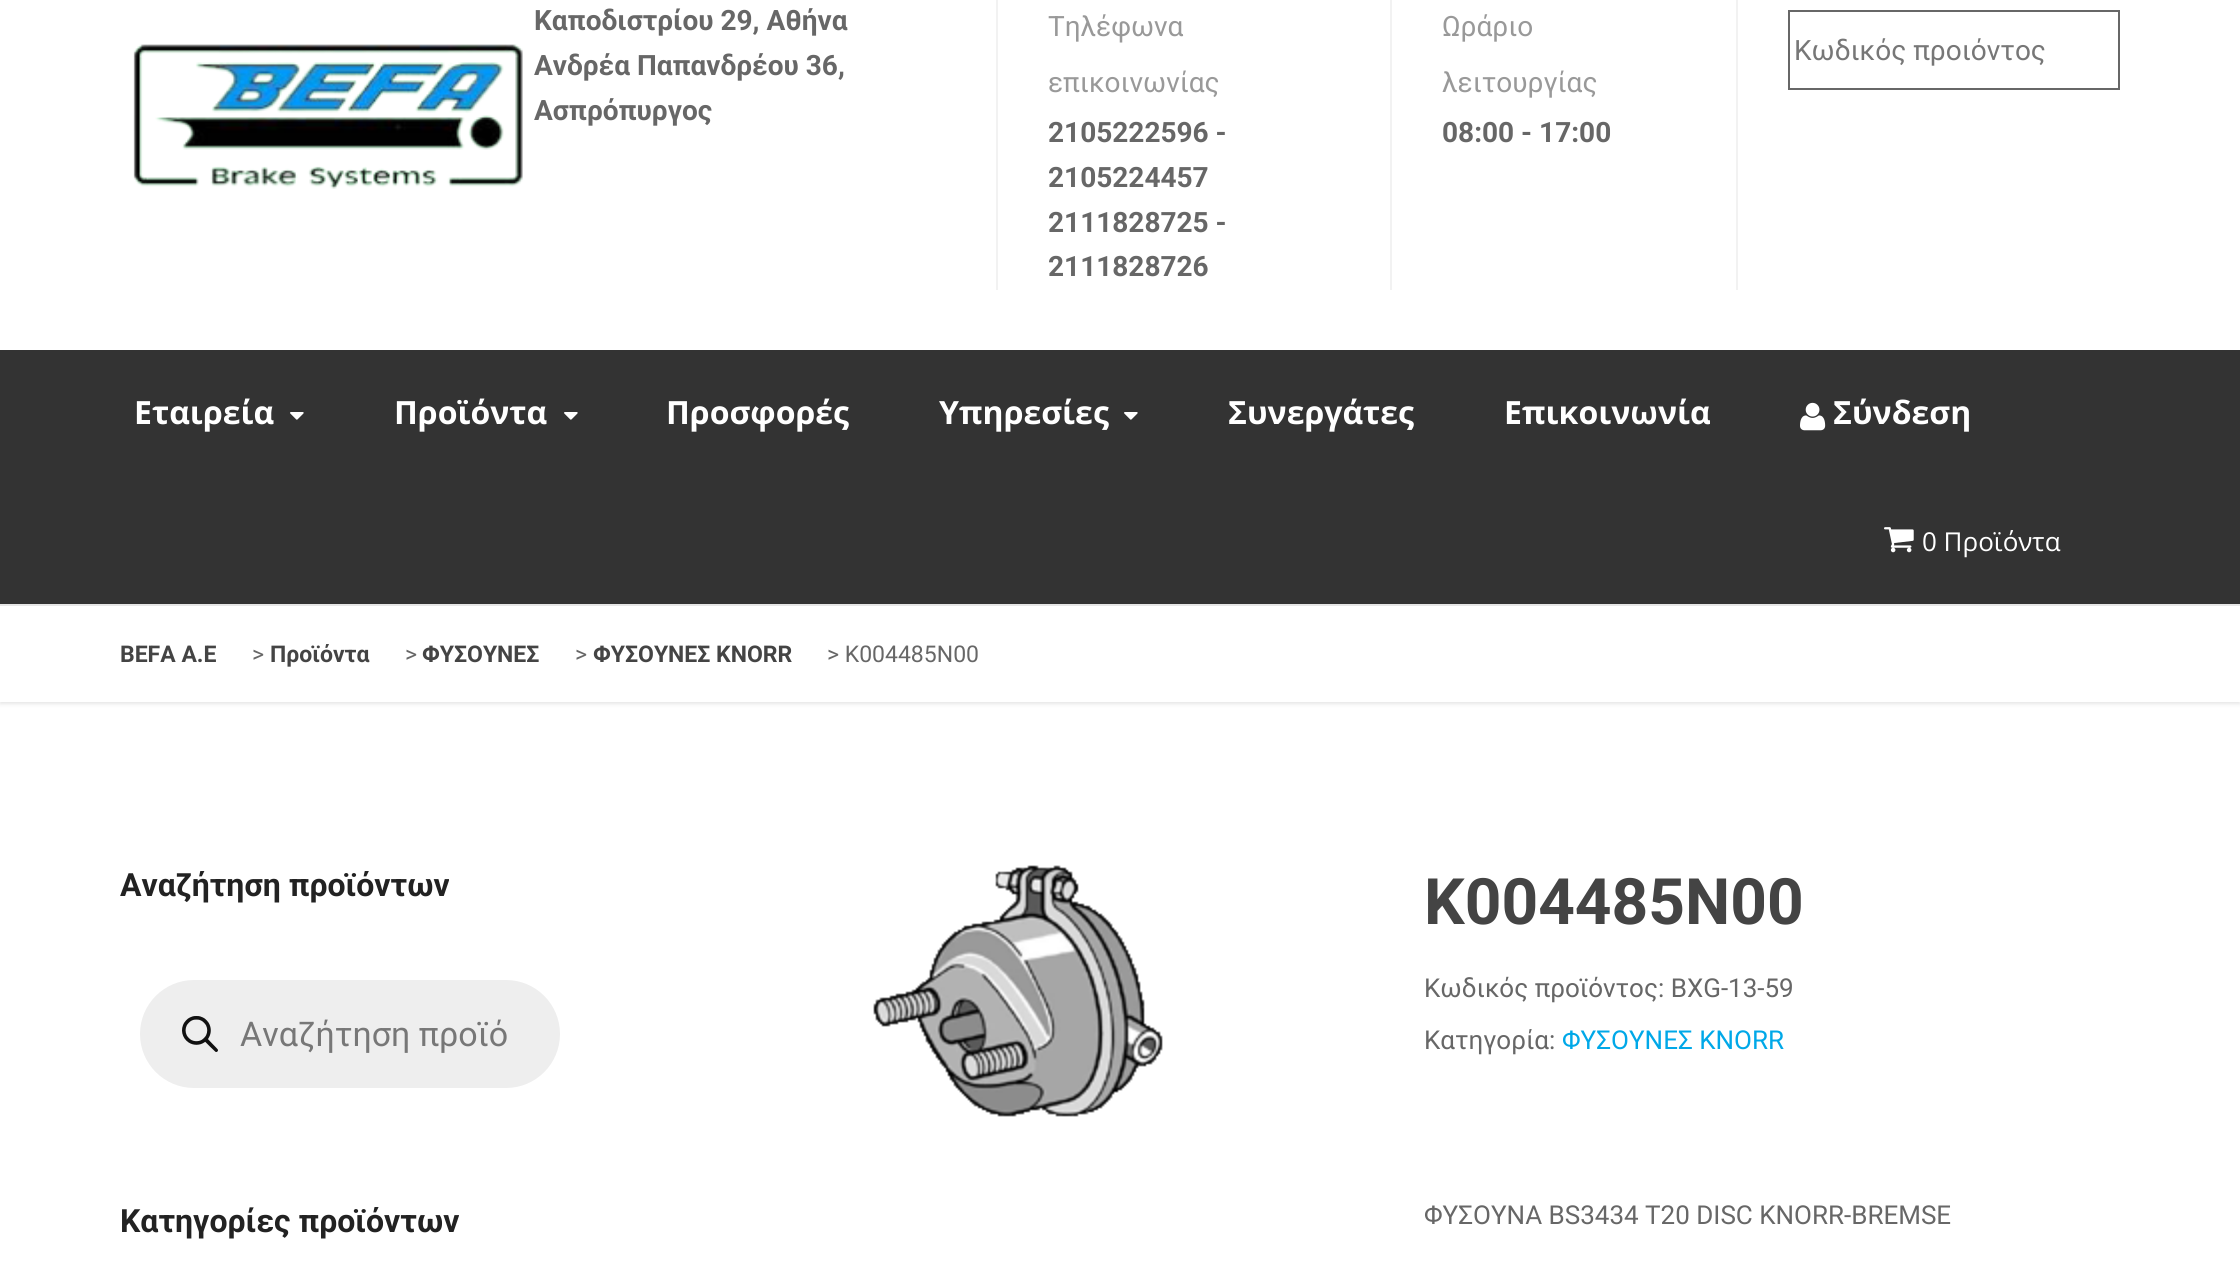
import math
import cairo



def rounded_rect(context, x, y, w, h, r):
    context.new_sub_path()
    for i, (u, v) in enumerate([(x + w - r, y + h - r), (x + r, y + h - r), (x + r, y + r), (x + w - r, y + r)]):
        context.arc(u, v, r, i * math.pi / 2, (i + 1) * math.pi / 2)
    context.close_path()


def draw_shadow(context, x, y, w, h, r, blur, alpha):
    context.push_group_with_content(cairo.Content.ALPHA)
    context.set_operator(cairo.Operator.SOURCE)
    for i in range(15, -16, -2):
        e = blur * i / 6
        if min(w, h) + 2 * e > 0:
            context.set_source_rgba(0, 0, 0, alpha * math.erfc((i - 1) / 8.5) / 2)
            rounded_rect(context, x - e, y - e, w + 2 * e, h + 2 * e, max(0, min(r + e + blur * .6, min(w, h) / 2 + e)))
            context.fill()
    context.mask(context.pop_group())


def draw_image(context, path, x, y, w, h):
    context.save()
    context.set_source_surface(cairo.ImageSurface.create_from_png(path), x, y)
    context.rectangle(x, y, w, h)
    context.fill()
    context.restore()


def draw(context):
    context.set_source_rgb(1, 1, 1)
    context.paint()
    draw_image(context, "images/1.png", 133, 44, 390, 145)
    context.set_source_rgb(242 / 255, 242 / 255, 242 / 255)
    context.rectangle(996, 0, 2, 290)
    context.fill()
    context.rectangle(1390, 0, 2, 290)
    context.fill()
    context.rectangle(1736, 0, 2, 290)
    context.fill()
    context.rectangle(1789, 11, 330, 78)
    context.set_source_rgb(103 / 255, 103 / 255, 103 / 255)
    context.stroke()
    context.save()
    context.rectangle(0, 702, 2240, 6)
    context.clip()
    context.set_source_rgb(230 / 255, 230 / 255, 230 / 255)
    draw_shadow(context, 0, 606, 2240, 98, 0, 2, 1)
    context.restore()
    context.set_source_rgb(51 / 255, 51 / 255, 51 / 255)
    context.rectangle(0, 350, 2240, 254)
    context.fill()
    draw_image(context, "images/2.png", 290, 412, 14, 8)
    draw_image(context, "images/2.png", 564, 412, 14, 8)
    draw_image(context, "images/2.png", 1124, 412, 14, 8)
    draw_image(context, "images/3.png", 1800, 402, 26, 29)
    draw_image(context, "images/4.png", 1884, 527, 30, 26)
    context.set_source_rgb(230 / 255, 230 / 255, 230 / 255)
    context.rectangle(0, 604, 2240, 2)
    context.fill()
    context.set_source_rgb(238 / 255, 238 / 255, 238 / 255)
    rounded_rect(context, 140, 980, 420, 108, 54)
    context.fill()
    draw_image(context, "images/5.png", 182, 1016, 36, 36)
    draw_image(context, "images/6.png", 873, 865, 290, 252)
    context.select_font_face("Roboto", cairo.FontSlant.NORMAL, cairo.FontWeight.BOLD)
    context.set_font_size(28)
    context.set_source_rgb(103 / 255, 103 / 255, 103 / 255)
    context.move_to(534, 30)
    context.show_text("Καποδιστρίου 29, Αθήνα")
    context.move_to(534, 75)
    context.show_text("Ανδρέα Παπανδρέου 36,")
    context.move_to(534, 120)
    context.show_text("Ασπρόπυργος")
    context.select_font_face("Roboto")
    context.set_source_rgb(153 / 255, 153 / 255, 153 / 255)
    context.move_to(1048, 36)
    context.show_text("Τηλέφωνα")
    context.move_to(1048, 92)
    context.show_text("επικοινωνίας")
    context.select_font_face("Roboto", cairo.FontSlant.NORMAL, cairo.FontWeight.BOLD)
    context.set_source_rgb(103 / 255, 103 / 255, 103 / 255)
    context.move_to(1048, 142)
    context.show_text("2105222596 -")
    context.move_to(1048, 187)
    context.show_text("2105224457")
    context.move_to(1048, 232)
    context.show_text("2111828725 -")
    context.move_to(1048, 276)
    context.show_text("2111828726")
    context.select_font_face("Roboto")
    context.set_source_rgb(153 / 255, 153 / 255, 153 / 255)
    context.move_to(1442, 36)
    context.show_text("Ωράριο")
    context.move_to(1442, 92)
    context.show_text("λειτουργίας")
    context.select_font_face("Roboto", cairo.FontSlant.NORMAL, cairo.FontWeight.BOLD)
    context.set_source_rgb(103 / 255, 103 / 255, 103 / 255)
    context.move_to(1442, 142)
    context.show_text("08:00 - 17:00")
    context.select_font_face("Roboto")
    context.set_source_rgb(119 / 255, 119 / 255, 119 / 255)
    context.move_to(1794, 60)
    context.show_text("Κωδικός προιόντος")
    context.select_font_face("Open Sans", cairo.FontSlant.NORMAL, cairo.FontWeight.BOLD)
    context.set_font_size(32)
    context.set_source_rgb(1, 1, 1)
    context.move_to(134, 424)
    context.show_text("Εταιρεία")
    context.move_to(394, 424)
    context.show_text("Προϊόντα")
    context.move_to(666, 424)
    context.show_text("Προσφορές")
    context.move_to(939, 424)
    context.show_text("Υπηρεσίες")
    context.move_to(1228, 424)
    context.show_text("Συνεργάτες")
    context.move_to(1504, 424)
    context.show_text("Επικοινωνία")
    context.move_to(1833, 424)
    context.show_text("Σύνδεση")
    context.select_font_face("Open Sans")
    context.set_font_size(26)
    context.move_to(1922, 551)
    context.show_text("0 Προϊόντα")
    context.select_font_face("Roboto", cairo.FontSlant.NORMAL, cairo.FontWeight.BOLD)
    context.set_font_size(23)
    context.set_source_rgb(68 / 255, 68 / 255, 68 / 255)
    context.move_to(120, 662)
    context.show_text("BEFA Α.Ε")
    context.select_font_face("Roboto")
    context.set_source_rgb(103 / 255, 103 / 255, 103 / 255)
    context.move_to(252, 662)
    context.show_text(">")
    context.select_font_face("Roboto", cairo.FontSlant.NORMAL, cairo.FontWeight.BOLD)
    context.set_source_rgb(68 / 255, 68 / 255, 68 / 255)
    context.move_to(270, 662)
    context.show_text("Προϊόντα")
    context.select_font_face("Roboto")
    context.set_source_rgb(103 / 255, 103 / 255, 103 / 255)
    context.move_to(405, 662)
    context.show_text(">")
    context.select_font_face("Roboto", cairo.FontSlant.NORMAL, cairo.FontWeight.BOLD)
    context.set_source_rgb(68 / 255, 68 / 255, 68 / 255)
    context.move_to(422, 662)
    context.show_text("ΦΥΣΟΥΝΕΣ")
    context.select_font_face("Roboto")
    context.set_source_rgb(103 / 255, 103 / 255, 103 / 255)
    context.move_to(575, 662)
    context.show_text(">")
    context.select_font_face("Roboto", cairo.FontSlant.NORMAL, cairo.FontWeight.BOLD)
    context.set_source_rgb(68 / 255, 68 / 255, 68 / 255)
    context.move_to(593, 662)
    context.show_text("ΦΥΣΟΥΝΕΣ KNORR")
    context.select_font_face("Roboto")
    context.set_source_rgb(103 / 255, 103 / 255, 103 / 255)
    context.move_to(827, 662)
    context.show_text("> K004485N00")
    context.select_font_face("Roboto", cairo.FontSlant.NORMAL, cairo.FontWeight.BOLD)
    context.set_font_size(32)
    context.set_source_rgb(34 / 255, 34 / 255, 34 / 255)
    context.move_to(120, 896)
    context.show_text("Αναζήτηση προϊόντων")
    context.select_font_face("Roboto")
    context.set_font_size(34)
    context.set_source_rgb(119 / 255, 119 / 255, 119 / 255)
    context.move_to(240, 1046)
    context.show_text("Αναζήτηση προϊό")
    context.select_font_face("Roboto", cairo.FontSlant.NORMAL, cairo.FontWeight.BOLD)
    context.set_font_size(32)
    context.set_source_rgb(34 / 255, 34 / 255, 34 / 255)
    context.move_to(120, 1232)
    context.show_text("Κατηγορίες προϊόντων")
    context.set_font_size(64)
    context.set_source_rgb(68 / 255, 68 / 255, 68 / 255)
    context.move_to(1424, 924)
    context.show_text("K004485N00")
    context.select_font_face("Roboto")
    context.set_font_size(26)
    context.set_source_rgb(103 / 255, 103 / 255, 103 / 255)
    context.move_to(1424, 997)
    context.show_text("Κωδικός προϊόντος: BXG-13-59")
    context.move_to(1424, 1049)
    context.show_text("Κατηγορία:")
    context.set_source_rgb(0, 168 / 255, 232 / 255)
    context.move_to(1562, 1049)
    context.show_text("ΦΥΣΟΥΝΕΣ KNORR")
    context.set_source_rgb(103 / 255, 103 / 255, 103 / 255)
    context.move_to(1424, 1224)
    context.show_text("ΦΥΣΟΥΝΑ BS3434 T20 DISC KNORR-BREMSE")


surface = cairo.ImageSurface(cairo.Format.RGB24, 2240, 1270)
context = cairo.Context(surface)
options = cairo.FontOptions()
options.set_hint_metrics(cairo.HintMetrics.OFF)
options.set_hint_style(cairo.HintStyle.NONE)
context.set_font_options(options)
context.set_miter_limit(4)
draw(context)
surface.write_to_png("out.png")
